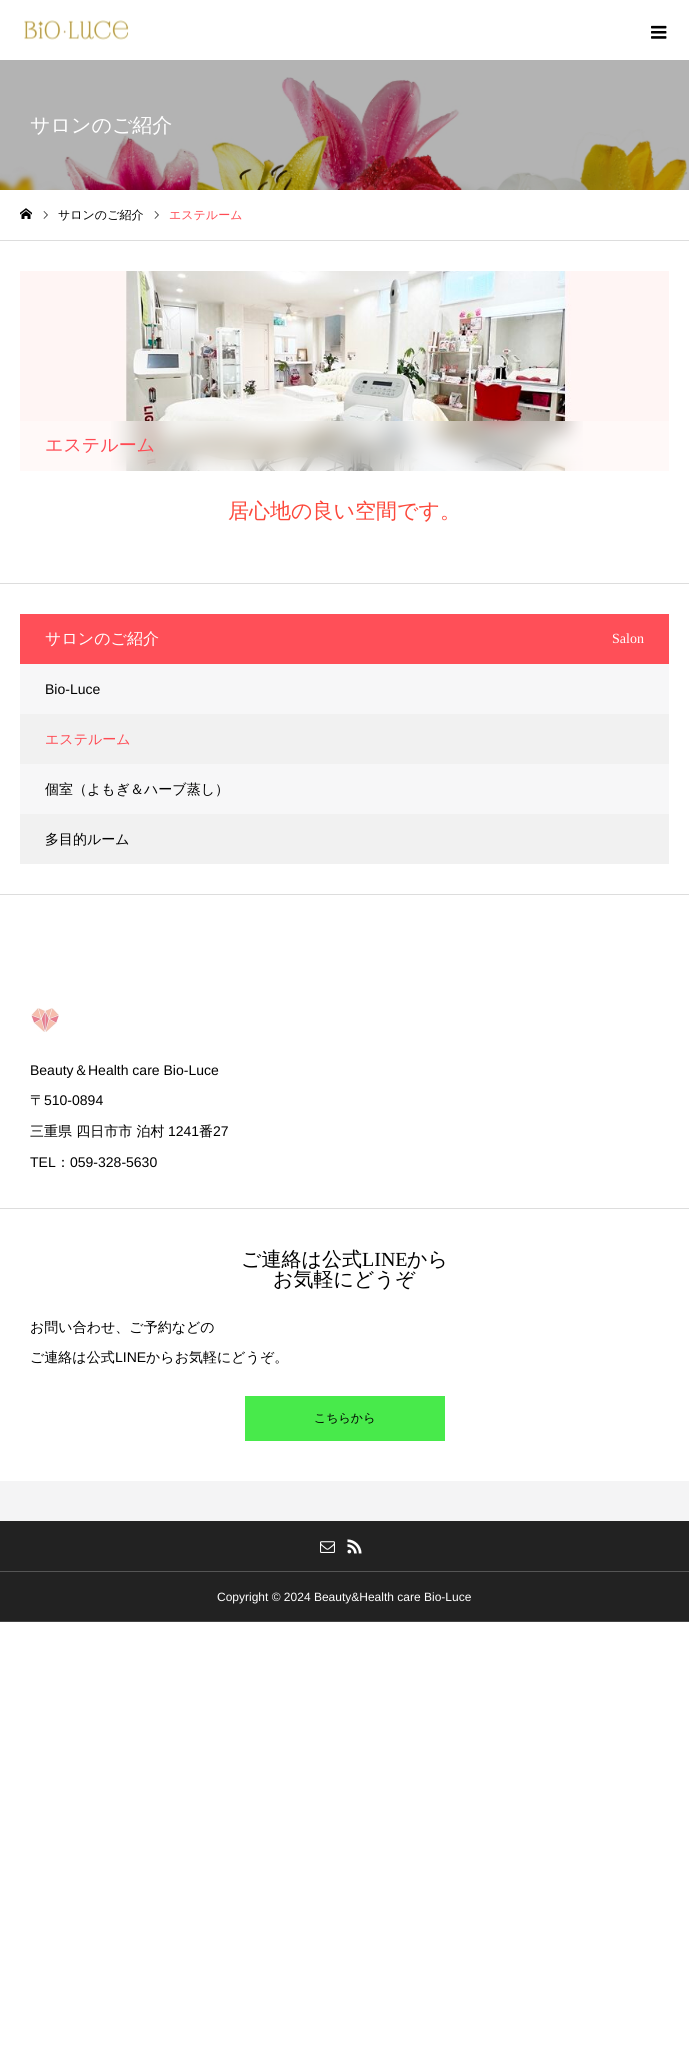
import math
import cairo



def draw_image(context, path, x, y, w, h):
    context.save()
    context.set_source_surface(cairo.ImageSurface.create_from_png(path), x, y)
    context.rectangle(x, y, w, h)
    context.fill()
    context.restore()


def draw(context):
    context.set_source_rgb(1, 1, 1)
    context.paint()
    context.set_source_rgb(179 / 255, 179 / 255, 179 / 255)
    context.rectangle(0, 60, 689, 17)
    context.fill()
    draw_image(context, "images/1.png", 24, 20, 105, 20)
    draw_image(context, "images/2.png", 651, 25, 16, 14)
    draw_image(context, "images/3.png", 0, 77, 689, 113)
    context.set_source_rgb(221 / 255, 221 / 255, 221 / 255)
    context.rectangle(0, 240, 689, 1)
    context.fill()
    draw_image(context, "images/4.png", 20, 208, 12, 11)
    draw_image(context, "images/5.png", 43, 211, 5, 8)
    draw_image(context, "images/5.png", 154, 211, 5, 8)
    draw_image(context, "images/6.png", 20, 271, 649, 200)
    draw_image(context, "images/7.png", 111, 421, 472, 50)
    context.set_source_rgba(1, 1, 1, 0.4)
    context.rectangle(20, 421, 649, 50)
    context.fill()
    context.set_source_rgb(221 / 255, 221 / 255, 221 / 255)
    context.rectangle(0, 583, 689, 1)
    context.fill()
    context.rectangle(0, 894, 689, 1)
    context.fill()
    context.set_source_rgb(1, 79 / 255, 88 / 255)
    context.rectangle(20, 614, 649, 50)
    context.fill()
    context.set_source_rgb(247 / 255, 247 / 255, 248 / 255)
    context.rectangle(20, 664, 649, 50)
    context.fill()
    context.set_source_rgb(241 / 255, 241 / 255, 241 / 255)
    context.rectangle(20, 714, 649, 50)
    context.fill()
    context.set_source_rgb(247 / 255, 247 / 255, 248 / 255)
    context.rectangle(20, 764, 649, 50)
    context.fill()
    context.set_source_rgb(241 / 255, 241 / 255, 241 / 255)
    context.rectangle(20, 814, 649, 50)
    context.fill()
    context.set_source_rgb(221 / 255, 221 / 255, 221 / 255)
    context.rectangle(0, 1208, 689, 1)
    context.fill()
    draw_image(context, "images/8.png", 31, 1008, 28, 24)
    context.set_source_rgb(72 / 255, 234 / 255, 75 / 255)
    context.rectangle(245, 1396, 200, 45)
    context.fill()
    context.set_source_rgb(244 / 255, 244 / 255, 245 / 255)
    context.rectangle(0, 1481, 689, 40)
    context.fill()
    context.set_source_rgb(34 / 255, 34 / 255, 34 / 255)
    context.rectangle(0, 1521, 689, 100)
    context.fill()
    context.set_source_rgb(85 / 255, 85 / 255, 85 / 255)
    context.rectangle(0, 1571, 689, 1)
    context.fill()
    draw_image(context, "images/9.png", 320, 1541, 15, 12)
    draw_image(context, "images/10.png", 347, 1539, 15, 15)
    context.set_source_rgb(68 / 255, 68 / 255, 68 / 255)
    context.rectangle(0, 1621, 689, 1)
    context.fill()
    context.select_font_face("WenQuanYi Zen Hei Medium")
    context.set_font_size(20)
    context.set_source_rgb(1, 1, 1)
    context.move_to(30, 132)
    context.show_text("サロンのご紹介")
    context.set_font_size(12)
    context.set_source_rgb(0, 0, 0)
    context.move_to(58, 219)
    context.show_text("サロンのご紹介")
    context.set_source_rgb(1, 75 / 255, 84 / 255)
    context.move_to(169, 219)
    context.show_text("エステルーム")
    context.set_font_size(18)
    context.move_to(45, 451)
    context.show_text("エステルーム")
    context.set_font_size(21)
    context.set_source_rgb(252 / 255, 71 / 255, 58 / 255)
    context.move_to(228, 518)
    context.show_text("居心地の良い空間です。")
    context.set_font_size(16)
    context.set_source_rgb(1, 1, 1)
    context.move_to(45, 644)
    context.show_text("サロンのご紹介")
    context.select_font_face("Liberation Serif")
    context.set_font_size(14)
    context.move_to(612, 643)
    context.show_text("Salon")
    context.select_font_face("Liberation Sans")
    context.set_source_rgb(0, 0, 0)
    context.move_to(45, 694)
    context.show_text("Bio-Luce")
    context.select_font_face("WenQuanYi Zen Hei Medium")
    context.set_source_rgb(1, 75 / 255, 84 / 255)
    context.move_to(45, 744)
    context.show_text("エステルーム")
    context.set_source_rgb(0, 0, 0)
    context.move_to(45, 794)
    context.show_text("個室（よもぎ＆ハーブ蒸し）")
    context.move_to(45, 844)
    context.show_text("多目的ルーム")
    context.select_font_face("Liberation Sans")
    context.move_to(30, 1075)
    context.show_text("Beauty")
    context.select_font_face("WenQuanYi Zen Hei Medium")
    context.move_to(74, 1075)
    context.show_text("＆")
    context.select_font_face("Liberation Sans")
    context.move_to(88, 1075)
    context.show_text("Health care Bio-Luce")
    context.select_font_face("WenQuanYi Zen Hei Medium")
    context.move_to(30, 1105)
    context.show_text("〒")
    context.select_font_face("Liberation Sans")
    context.move_to(44, 1105)
    context.show_text("510-0894")
    context.select_font_face("WenQuanYi Zen Hei Medium")
    context.move_to(30, 1136)
    context.show_text("三重県 四日市市 泊村")
    context.select_font_face("Liberation Sans")
    context.move_to(168, 1136)
    context.show_text("1241")
    context.select_font_face("WenQuanYi Zen Hei Medium")
    context.move_to(199, 1136)
    context.show_text("番")
    context.select_font_face("Liberation Sans")
    context.move_to(213, 1136)
    context.show_text("27")
    context.move_to(30, 1167)
    context.show_text("TEL")
    context.select_font_face("WenQuanYi Zen Hei Medium")
    context.move_to(56, 1167)
    context.show_text("：")
    context.select_font_face("Liberation Sans")
    context.move_to(70, 1167)
    context.show_text("059-328-5630")
    context.select_font_face("WenQuanYi Zen Hei Medium")
    context.set_font_size(20)
    context.move_to(241, 1266)
    context.show_text("ご連絡は公式")
    context.select_font_face("Liberation Serif")
    context.move_to(362, 1266)
    context.show_text("LINE")
    context.select_font_face("WenQuanYi Zen Hei Medium")
    context.move_to(407, 1266)
    context.show_text("から")
    context.move_to(273, 1286)
    context.show_text("お気軽にどうぞ")
    context.set_font_size(14)
    context.move_to(30, 1332)
    context.show_text("お問い合わせ、ご予約などの")
    context.move_to(30, 1362)
    context.show_text("ご連絡は公式")
    context.select_font_face("Liberation Sans")
    context.move_to(115, 1362)
    context.show_text("LINE")
    context.select_font_face("WenQuanYi Zen Hei Medium")
    context.move_to(146, 1362)
    context.show_text("からお気軽にどうぞ。")
    context.set_font_size(12)
    context.move_to(314, 1422)
    context.show_text("こちらから")
    context.select_font_face("Liberation Sans")
    context.set_source_rgb(1, 1, 1)
    context.move_to(217, 1601)
    context.show_text("Copyright © 2024 Beauty&Health care Bio-Luce")


surface = cairo.ImageSurface(cairo.Format.RGB24, 689, 2063)
context = cairo.Context(surface)
options = cairo.FontOptions()
options.set_hint_metrics(cairo.HintMetrics.OFF)
options.set_hint_style(cairo.HintStyle.NONE)
context.set_font_options(options)
context.set_miter_limit(4)
draw(context)
surface.write_to_png("out.png")
